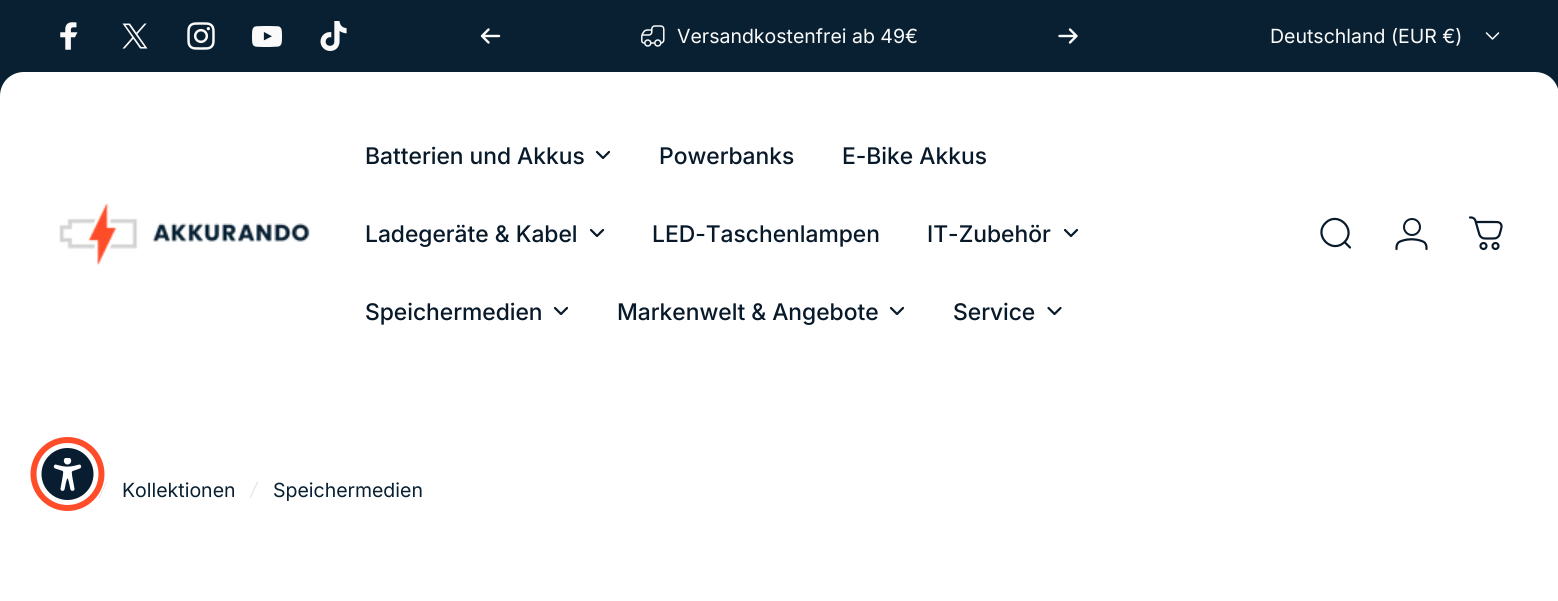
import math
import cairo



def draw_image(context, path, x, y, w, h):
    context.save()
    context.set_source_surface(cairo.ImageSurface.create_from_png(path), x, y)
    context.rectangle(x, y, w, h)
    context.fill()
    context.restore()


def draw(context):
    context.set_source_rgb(1, 1, 1)
    context.paint()
    context.set_source_rgb(8 / 255, 32 / 255, 50 / 255)
    context.rectangle(0, 0, 1558, 24)
    context.fill()
    context.new_path()
    context.move_to(24, 0)
    context.line_to(1535, 0)
    context.curve_to(1548.5, 0, 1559, 10.5, 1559, 24)
    context.line_to(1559, 96)
    context.line_to(0, 96)
    context.line_to(0, 24)
    context.curve_to(0, 10.5, 10.5, 0, 24, 0)
    context.close_path()
    context.fill()
    draw_image(context, "images/1.png", 60, 22, 18, 28)
    draw_image(context, "images/2.png", 122, 23, 26, 26)
    draw_image(context, "images/3.png", 187, 22, 28, 28)
    draw_image(context, "images/4.png", 252, 26, 30, 21)
    draw_image(context, "images/5.png", 320, 21, 27, 30)
    context.new_path()
    context.move_to(488.5, 29.5)
    context.line_to(482, 36)
    context.move_to(482, 36)
    context.line_to(488.5, 42.5)
    context.move_to(482, 36)
    context.line_to(499, 36)
    context.set_source_rgb(250 / 255, 250 / 255, 250 / 255)
    context.set_line_width(2.4)
    context.set_line_cap(cairo.LineCap.ROUND)
    context.set_line_join(cairo.LineJoin.ROUND)
    context.stroke()
    draw_image(context, "images/6.png", 641, 25, 24, 22)
    context.new_path()
    context.move_to(1059.5, 36)
    context.line_to(1076.5, 36)
    context.move_to(1076.5, 36)
    context.line_to(1070, 29.5)
    context.move_to(1076.5, 36)
    context.line_to(1070, 42.5)
    context.stroke()
    context.new_path()
    context.move_to(1486.5, 33)
    context.line_to(1492.5, 39)
    context.line_to(1498.5, 33)
    context.set_line_width(1.5)
    context.stroke()
    context.set_source_rgb(1, 1, 1)
    context.new_path()
    context.move_to(24, 72)
    context.line_to(1535, 72)
    context.curve_to(1548.5, 72, 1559, 82.5, 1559, 96)
    context.line_to(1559, 396)
    context.line_to(0, 396)
    context.line_to(0, 96)
    context.curve_to(0, 82.5, 10.5, 72, 24, 72)
    context.close_path()
    context.fill()
    draw_image(context, "images/7.png", 59, 203, 251, 63)
    context.new_path()
    context.move_to(597, 152)
    context.line_to(603, 158)
    context.line_to(609, 152)
    context.set_source_rgb(8 / 255, 25 / 255, 42 / 255)
    context.set_line_width(2.2)
    context.stroke()
    context.new_path()
    context.move_to(591, 230)
    context.line_to(597, 236)
    context.line_to(603, 230)
    context.stroke()
    context.new_path()
    context.move_to(1065, 230)
    context.line_to(1071, 236)
    context.line_to(1077, 230)
    context.stroke()
    context.new_path()
    context.move_to(555, 308)
    context.line_to(561, 314)
    context.line_to(567, 308)
    context.stroke()
    context.new_path()
    context.move_to(891, 308)
    context.line_to(897, 314)
    context.line_to(903, 308)
    context.stroke()
    context.new_path()
    context.move_to(1048.5, 308)
    context.line_to(1054.5, 314)
    context.line_to(1060.5, 308)
    context.stroke()
    context.new_path()
    context.move_to(1350, 247.5)
    context.line_to(1344.5, 242)
    context.move_to(1344.5, 242)
    context.curve_to(1357, 229.5, 1338, 210.5, 1325.5, 223)
    context.curve_to(1313, 235.5, 1332, 254.5, 1344.5, 242)
    context.close_path()
    context.set_line_join(cairo.LineJoin.MITER)
    context.stroke()
    draw_image(context, "images/8.png", 1395, 218, 33, 33)
    draw_image(context, "images/9.png", 1469, 216, 34, 35)
    context.set_source_rgb(230 / 255, 233 / 255, 235 / 255)
    context.new_path()
    context.move_to(106, 481.5)
    context.line_to(107, 482)
    context.line_to(99.5, 498.5)
    context.line_to(98.5, 497.5)
    context.close_path()
    context.fill()
    context.set_source_rgb(1, 77 / 255, 41 / 255)
    context.arc(67.5, 474, 37, 0, 2 * math.pi)
    context.fill()
    context.set_source_rgb(1, 1, 1)
    context.arc(67.5, 474, 31, 0, 2 * math.pi)
    context.fill()
    context.set_source_rgb(8 / 255, 29 / 255, 48 / 255)
    context.arc(67.5, 474, 26, 0, 2 * math.pi)
    context.fill()
    draw_image(context, "images/10.png", 53, 458, 29, 33)
    context.set_source_rgb(230 / 255, 233 / 255, 235 / 255)
    context.new_path()
    context.move_to(257, 481.5)
    context.line_to(258.5, 482)
    context.line_to(250.5, 498.5)
    context.line_to(249.5, 497.5)
    context.close_path()
    context.fill()
    context.select_font_face("Inter")
    context.set_font_size(19.5)
    context.set_source_rgb(250 / 255, 250 / 255, 250 / 255)
    context.move_to(677, 43)
    context.show_text("Versandkostenfrei ab 49€")
    context.move_to(1270, 43)
    context.show_text("Deutschland (EUR €)")
    context.select_font_face("Inter Medium")
    context.set_font_size(22.9)
    context.set_source_rgb(8 / 255, 25 / 255, 42 / 255)
    context.move_to(365, 164)
    context.show_text("Batterien und Akkus")
    context.move_to(659, 164)
    context.show_text("Powerbanks")
    context.move_to(842, 164)
    context.show_text("E-Bike Akkus")
    context.move_to(365, 242)
    context.show_text("Ladegeräte & Kabel")
    context.move_to(652, 242)
    context.show_text("LED-Taschenlampen")
    context.move_to(927, 242)
    context.show_text("IT-Zubehör")
    context.move_to(365, 320)
    context.show_text("Speichermedien")
    context.move_to(617, 320)
    context.show_text("Markenwelt & Angebote")
    context.move_to(953, 320)
    context.show_text("Service")
    context.select_font_face("Inter")
    context.set_font_size(19.5)
    context.set_source_rgb(8 / 255, 32 / 255, 50 / 255)
    context.move_to(122, 497)
    context.show_text("Kollektionen")
    context.move_to(273, 497)
    context.show_text("Speichermedien")


surface = cairo.ImageSurface(cairo.Format.RGB24, 1558, 601)
context = cairo.Context(surface)
options = cairo.FontOptions()
options.set_hint_metrics(cairo.HintMetrics.OFF)
options.set_hint_style(cairo.HintStyle.NONE)
context.set_font_options(options)
context.set_miter_limit(4)
draw(context)
surface.write_to_png("out.png")
